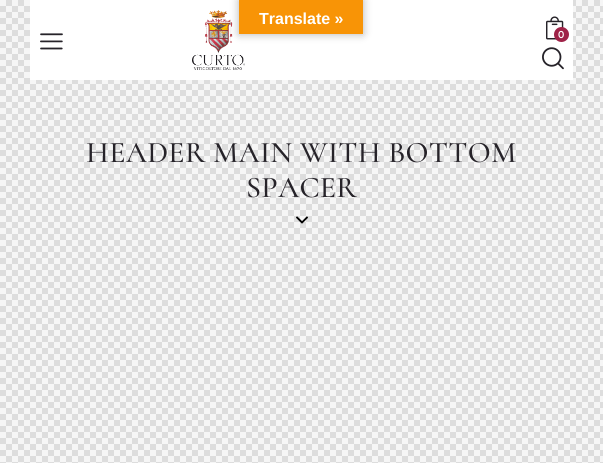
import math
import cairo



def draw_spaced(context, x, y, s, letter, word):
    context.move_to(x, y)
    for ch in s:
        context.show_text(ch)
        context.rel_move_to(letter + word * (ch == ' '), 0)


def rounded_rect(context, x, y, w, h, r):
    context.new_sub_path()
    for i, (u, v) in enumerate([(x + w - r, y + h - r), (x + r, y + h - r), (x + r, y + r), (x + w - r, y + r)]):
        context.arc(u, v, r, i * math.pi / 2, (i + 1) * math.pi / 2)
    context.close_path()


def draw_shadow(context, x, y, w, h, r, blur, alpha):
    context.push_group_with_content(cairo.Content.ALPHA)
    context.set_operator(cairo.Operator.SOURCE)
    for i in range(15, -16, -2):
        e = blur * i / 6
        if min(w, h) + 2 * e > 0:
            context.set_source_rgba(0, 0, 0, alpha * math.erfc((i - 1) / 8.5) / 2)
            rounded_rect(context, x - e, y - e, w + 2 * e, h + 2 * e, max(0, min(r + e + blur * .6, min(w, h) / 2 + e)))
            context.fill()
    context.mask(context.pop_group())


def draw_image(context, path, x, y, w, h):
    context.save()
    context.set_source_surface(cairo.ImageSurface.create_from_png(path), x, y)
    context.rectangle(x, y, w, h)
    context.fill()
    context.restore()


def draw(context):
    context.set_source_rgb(1, 1, 1)
    context.paint()
    draw_image(context, "images/1.png", 0, 0, 603, 463)
    context.set_source_rgb(1, 1, 1)
    context.rectangle(30, 0, 543, 80)
    context.fill()
    draw_image(context, "images/3.png", 192, 10, 53, 60)
    context.set_source_rgb(0, 0, 0)
    draw_shadow(context, 239, 0, 124, 34, 0, 4.5, 0.3)
    context.set_source_rgb(248 / 255, 148 / 255, 6 / 255)
    context.rectangle(239, 0, 124, 34)
    context.fill()
    draw_image(context, "images/2.png", 40, 33, 23, 17)
    draw_image(context, "images/4.png", 546, 16, 18, 24)
    context.set_source_rgb(159 / 255, 35 / 255, 72 / 255)
    context.arc(561.5, 34.5, 7.5, 0, 2 * math.pi)
    context.fill()
    draw_image(context, "images/5.png", 542, 47, 22, 23)
    draw_image(context, "images/6.png", 296, 216, 12, 8)
    context.select_font_face("Liberation Sans", cairo.FontSlant.NORMAL, cairo.FontWeight.BOLD)
    context.set_font_size(16)
    context.set_source_rgb(1, 1, 1)
    context.move_to(259, 24)
    context.show_text("Translate »")
    context.select_font_face("Jost Medium")
    context.set_font_size(10)
    context.move_to(558, 38)
    context.show_text("0")
    context.select_font_face("Cormorant Medium")
    context.set_font_size(30)
    context.set_source_rgb(38 / 255, 35 / 255, 41 / 255)
    draw_spaced(context, 86, 162, "HEADER MAIN WITH BOTTOM", 0.3, 0)
    draw_spaced(context, 246, 197, "SPACER", 0.3, 0)


surface = cairo.ImageSurface(cairo.Format.RGB24, 603, 463)
context = cairo.Context(surface)
options = cairo.FontOptions()
options.set_hint_metrics(cairo.HintMetrics.OFF)
options.set_hint_style(cairo.HintStyle.NONE)
context.set_font_options(options)
context.set_miter_limit(4)
draw(context)
surface.write_to_png("out.png")
